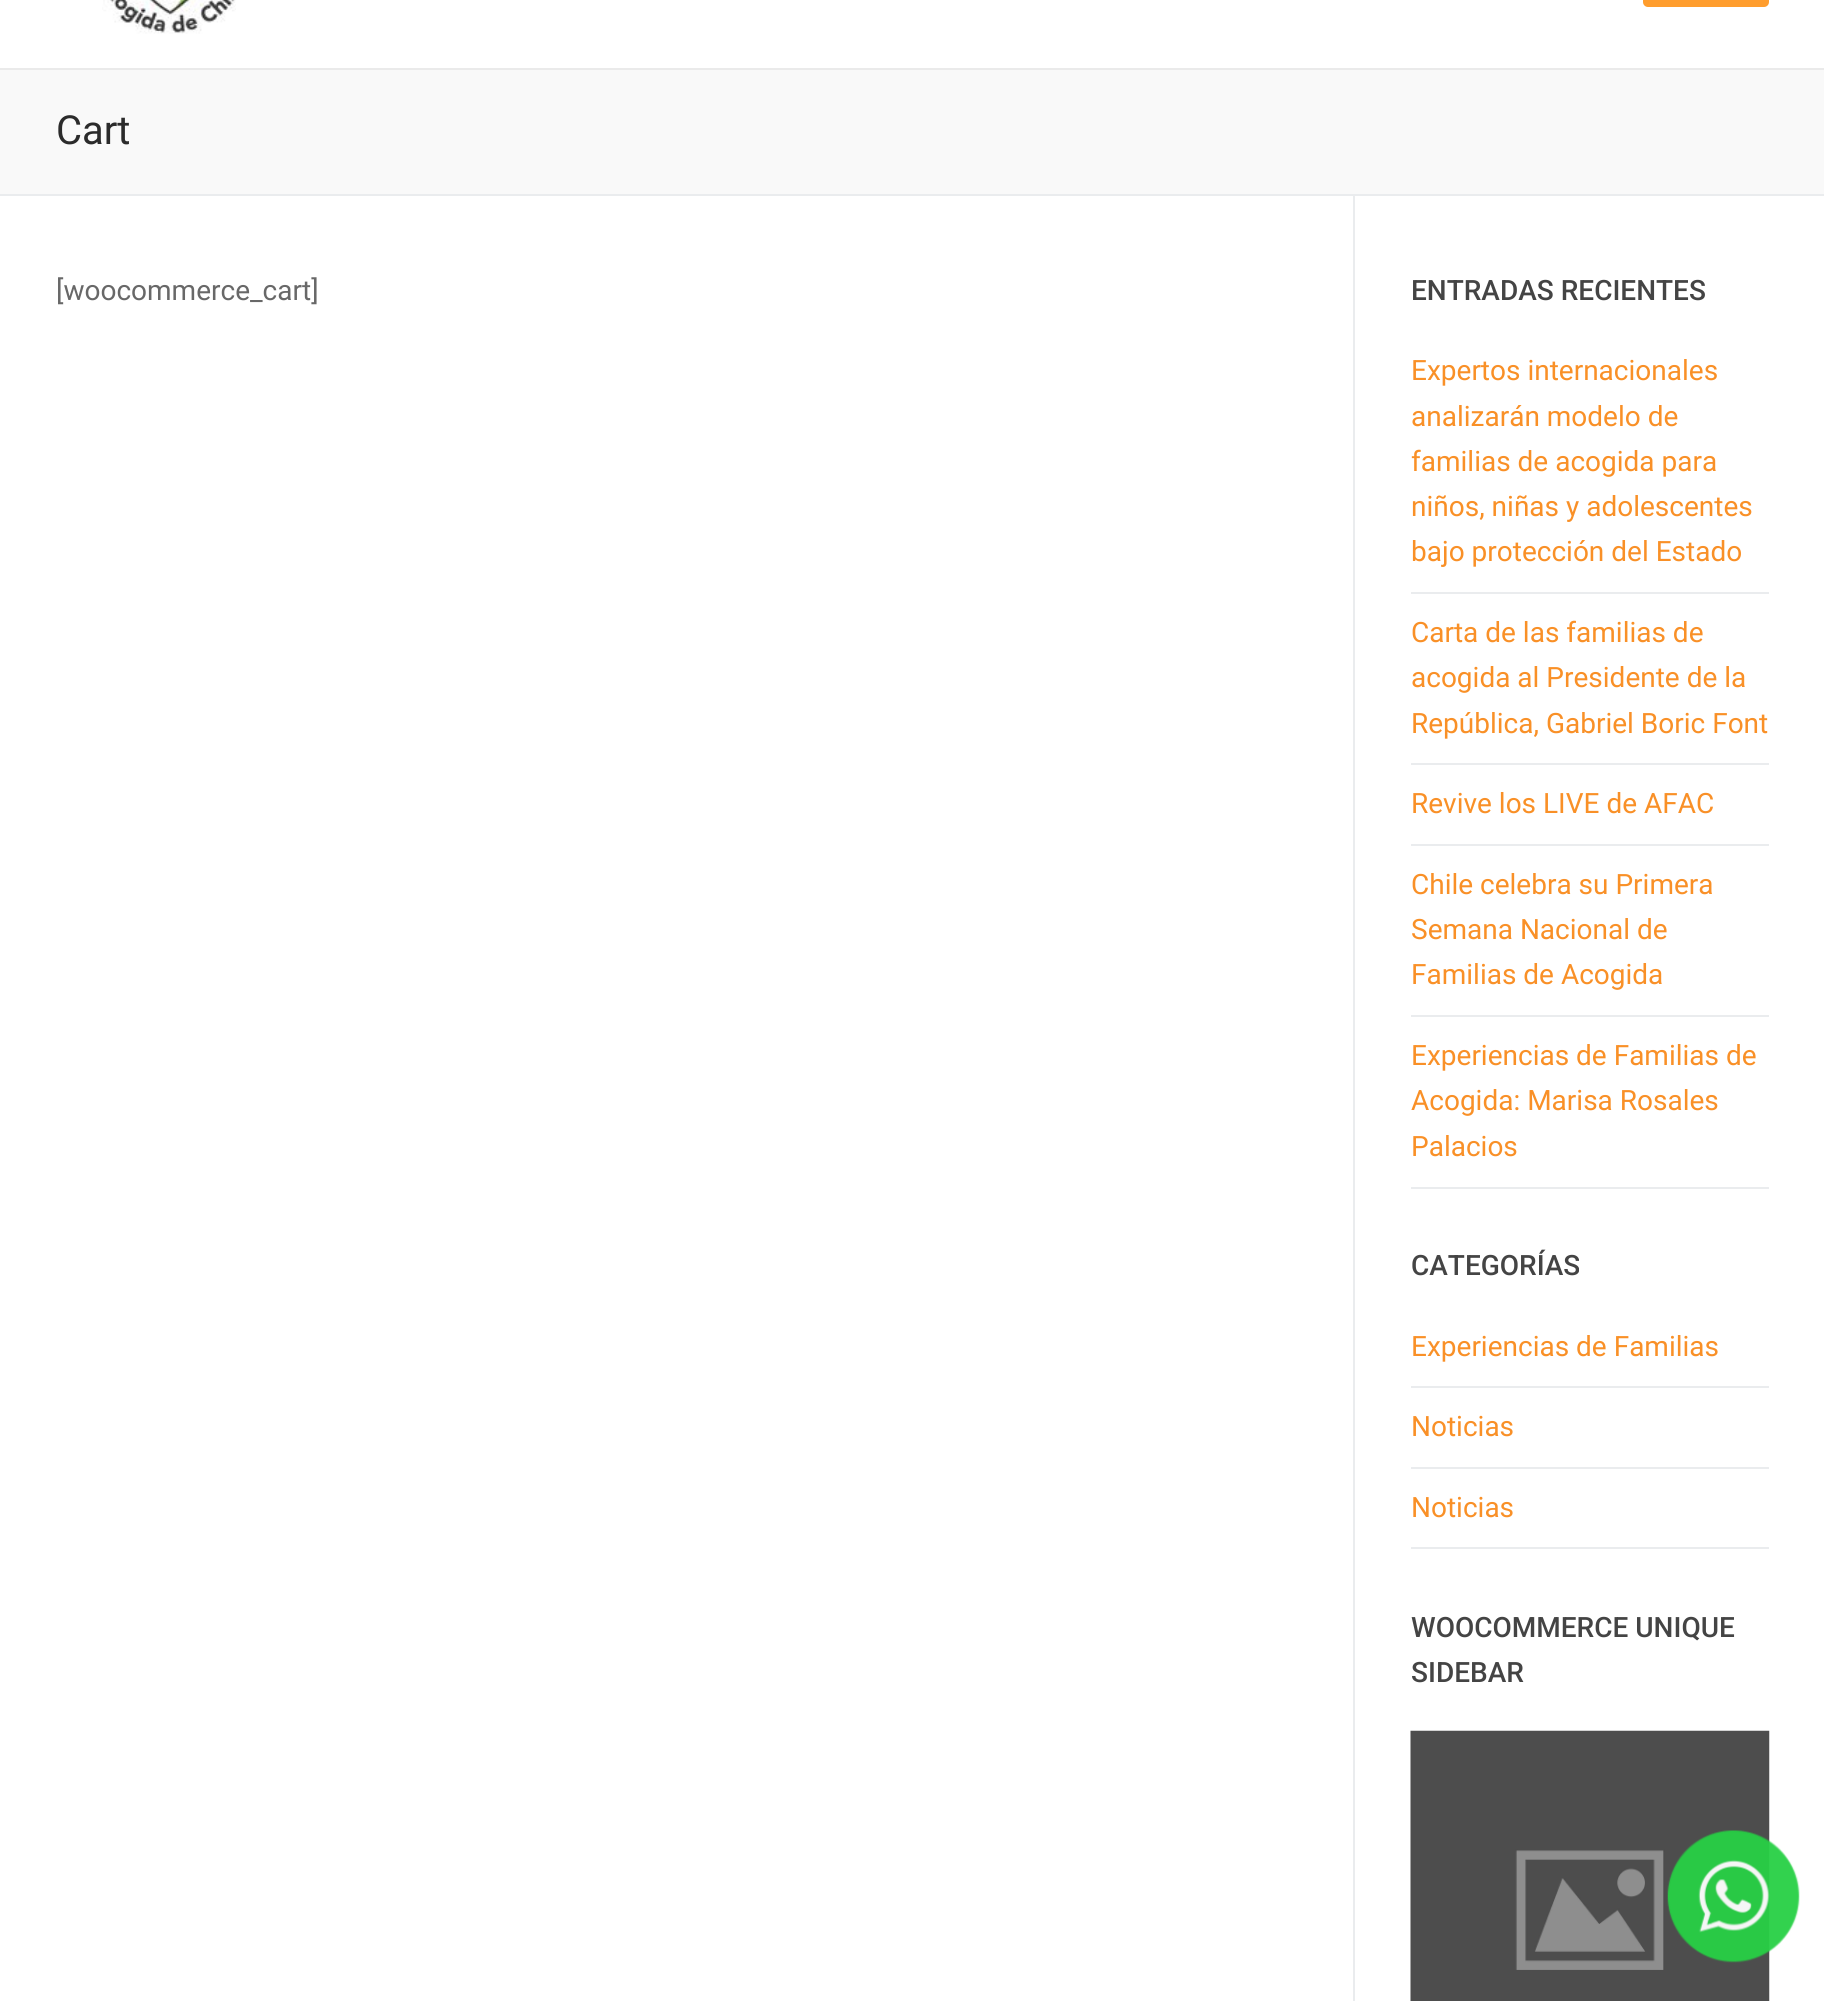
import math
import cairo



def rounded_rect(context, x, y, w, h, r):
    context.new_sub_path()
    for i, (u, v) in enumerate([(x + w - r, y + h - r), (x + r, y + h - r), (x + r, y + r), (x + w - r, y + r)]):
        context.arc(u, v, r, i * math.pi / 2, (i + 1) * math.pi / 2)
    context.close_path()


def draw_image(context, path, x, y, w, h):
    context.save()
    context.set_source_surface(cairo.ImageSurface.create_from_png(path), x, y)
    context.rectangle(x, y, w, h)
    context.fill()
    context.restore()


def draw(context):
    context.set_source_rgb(1, 1, 1)
    context.paint()
    context.set_source_rgb(234 / 255, 234 / 255, 234 / 255)
    context.rectangle(0, 68, 1824, 2)
    context.fill()
    draw_image(context, "images/1.png", 102, 0, 134, 34)
    context.set_source_rgb(1, 157 / 255, 45 / 255)
    rounded_rect(context, 1643, -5, 126, 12, 5)
    context.fill()
    context.set_source_rgb(249 / 255, 249 / 255, 249 / 255)
    context.rectangle(0, 70, 1824, 124)
    context.fill()
    context.set_source_rgb(234 / 255, 236 / 255, 238 / 255)
    context.rectangle(0, 194, 1824, 2)
    context.fill()
    context.rectangle(1353, 196, 2, 1805)
    context.fill()
    context.rectangle(1411, 592, 358, 2)
    context.fill()
    context.rectangle(1411, 763, 358, 2)
    context.fill()
    context.rectangle(1411, 844, 358, 2)
    context.fill()
    context.rectangle(1411, 1015, 358, 2)
    context.fill()
    context.rectangle(1411, 1187, 358, 2)
    context.fill()
    context.rectangle(1411, 1386, 358, 2)
    context.fill()
    context.rectangle(1411, 1467, 358, 2)
    context.fill()
    context.rectangle(1411, 1547, 358, 2)
    context.fill()
    draw_image(context, "images/2.png", 1410, 1730, 360, 271)
    draw_image(context, "images/3.png", 1667, 1830, 133, 133)
    context.select_font_face("Roboto")
    context.set_font_size(40)
    context.set_source_rgb(43 / 255, 43 / 255, 43 / 255)
    context.move_to(56, 144)
    context.show_text("Cart")
    context.set_font_size(28)
    context.set_source_rgb(104 / 255, 104 / 255, 104 / 255)
    context.move_to(56, 300)
    context.show_text("[woocommerce_cart]")
    context.select_font_face("Roboto Medium")
    context.set_source_rgb(68 / 255, 68 / 255, 68 / 255)
    context.move_to(1411, 300)
    context.show_text("ENTRADAS RECIENTES")
    context.select_font_face("Roboto")
    context.set_source_rgb(249 / 255, 144 / 255, 39 / 255)
    context.move_to(1411, 380)
    context.show_text("Expertos internacionales")
    context.move_to(1411, 426)
    context.show_text("analizarán modelo de")
    context.move_to(1411, 471)
    context.show_text("familias de acogida para")
    context.move_to(1411, 516)
    context.show_text("niños, niñas y adolescentes")
    context.move_to(1411, 561)
    context.show_text("bajo protección del Estado")
    context.move_to(1411, 642)
    context.show_text("Carta de las familias de")
    context.move_to(1411, 687)
    context.show_text("acogida al Presidente de la")
    context.move_to(1411, 733)
    context.show_text("República, Gabriel Boric Font")
    context.move_to(1411, 813)
    context.show_text("Revive los LIVE de AFAC")
    context.move_to(1411, 894)
    context.show_text("Chile celebra su Primera")
    context.move_to(1411, 939)
    context.show_text("Semana Nacional de")
    context.move_to(1411, 984)
    context.show_text("Familias de Acogida")
    context.move_to(1411, 1065)
    context.show_text("Experiencias de Familias de")
    context.move_to(1411, 1110)
    context.show_text("Acogida: Marisa Rosales")
    context.move_to(1411, 1156)
    context.show_text("Palacios")
    context.select_font_face("Roboto Medium")
    context.set_source_rgb(68 / 255, 68 / 255, 68 / 255)
    context.move_to(1411, 1275)
    context.show_text("CATEGORÍAS")
    context.select_font_face("Roboto")
    context.set_source_rgb(249 / 255, 144 / 255, 39 / 255)
    context.move_to(1411, 1356)
    context.show_text("Experiencias de Familias")
    context.move_to(1411, 1436)
    context.show_text("Noticias")
    context.move_to(1411, 1517)
    context.show_text("Noticias")
    context.select_font_face("Roboto Medium")
    context.set_source_rgb(68 / 255, 68 / 255, 68 / 255)
    context.move_to(1411, 1637)
    context.show_text("WOOCOMMERCE UNIQUE")
    context.move_to(1411, 1682)
    context.show_text("SIDEBAR")


surface = cairo.ImageSurface(cairo.Format.RGB24, 1824, 2001)
context = cairo.Context(surface)
options = cairo.FontOptions()
options.set_hint_metrics(cairo.HintMetrics.OFF)
options.set_hint_style(cairo.HintStyle.NONE)
context.set_font_options(options)
context.set_miter_limit(4)
draw(context)
surface.write_to_png("out.png")
